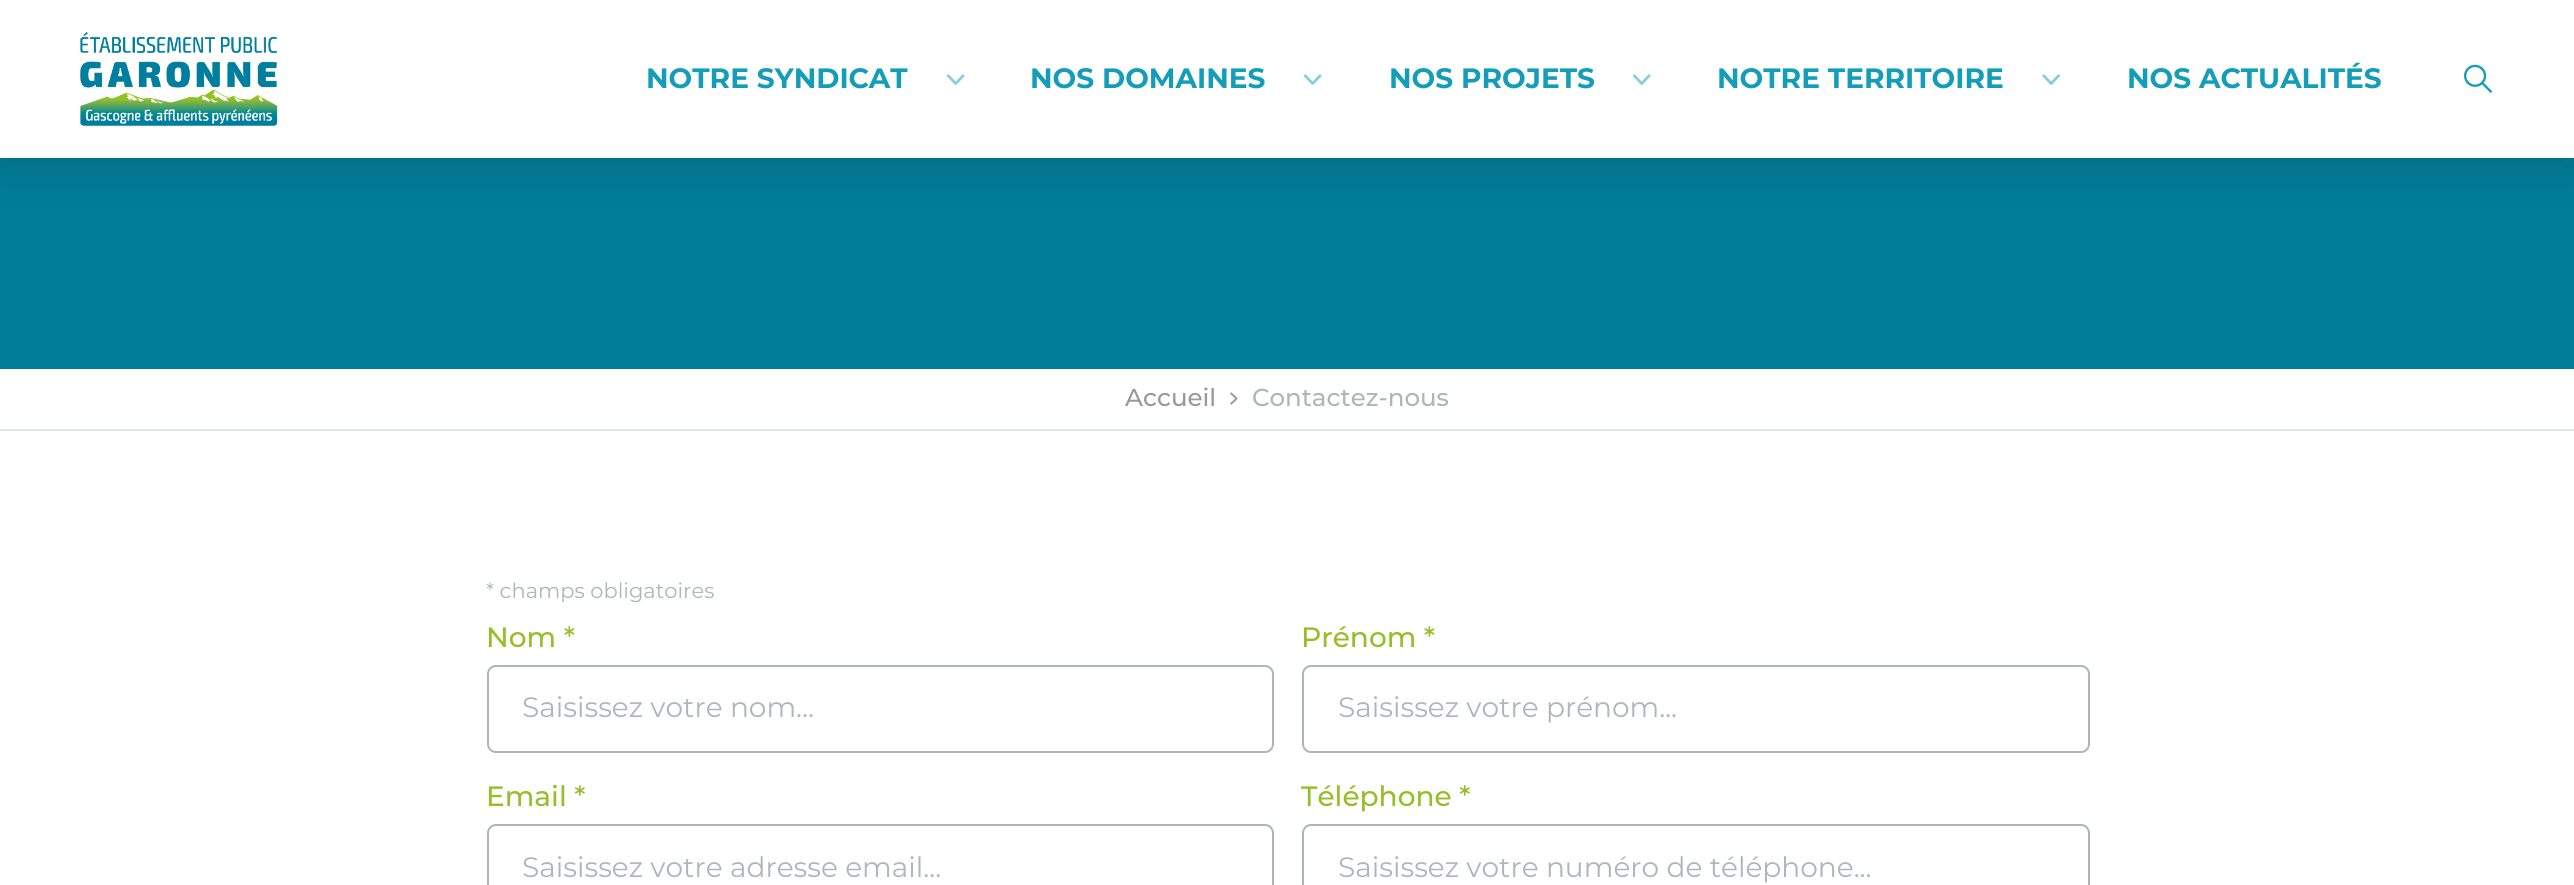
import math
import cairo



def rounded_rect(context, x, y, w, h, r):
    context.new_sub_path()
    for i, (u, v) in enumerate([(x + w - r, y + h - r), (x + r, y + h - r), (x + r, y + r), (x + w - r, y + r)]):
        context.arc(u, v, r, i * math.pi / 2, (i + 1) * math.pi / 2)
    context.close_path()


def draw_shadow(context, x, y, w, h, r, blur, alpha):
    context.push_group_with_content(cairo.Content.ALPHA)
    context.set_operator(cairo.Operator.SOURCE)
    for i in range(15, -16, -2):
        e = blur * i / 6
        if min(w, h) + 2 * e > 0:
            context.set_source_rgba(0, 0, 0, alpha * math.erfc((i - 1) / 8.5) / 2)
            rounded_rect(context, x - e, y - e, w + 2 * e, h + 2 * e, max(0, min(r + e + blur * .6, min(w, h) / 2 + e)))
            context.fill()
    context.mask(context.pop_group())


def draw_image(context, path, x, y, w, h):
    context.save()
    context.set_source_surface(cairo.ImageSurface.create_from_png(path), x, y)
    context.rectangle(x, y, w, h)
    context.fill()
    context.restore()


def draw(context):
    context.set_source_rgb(1, 1, 1)
    context.paint()
    context.set_source_rgb(0, 125 / 255, 152 / 255)
    context.rectangle(0, 158, 2574, 211)
    context.fill()
    context.set_source_rgb(33 / 255, 37 / 255, 41 / 255)
    draw_shadow(context, 0, 0, 2574, 158, 0, 28, 0.25)
    context.set_source_rgb(1, 1, 1)
    context.rectangle(0, 0, 2574, 158)
    context.fill()
    draw_image(context, "images/1.png", 80, 31, 198, 95)
    draw_image(context, "images/2.png", 946, 74, 19, 11)
    draw_image(context, "images/2.png", 1303, 74, 19, 11)
    draw_image(context, "images/2.png", 1632, 74, 19, 11)
    draw_image(context, "images/3.png", 2042, 74, 18, 11)
    draw_image(context, "images/4.png", 2464, 64, 28, 29)
    context.set_source_rgb(223 / 255, 229 / 255, 230 / 255)
    context.rectangle(0, 429, 2574, 2)
    context.fill()
    draw_image(context, "images/5.png", 1230, 392, 8, 13)
    rounded_rect(context, 488, 666, 785, 86, 8)
    context.set_source_rgb(173 / 255, 181 / 255, 189 / 255)
    context.stroke()
    rounded_rect(context, 1303, 666, 786, 86, 8)
    context.stroke()
    rounded_rect(context, 488, 825, 785, 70, 8)
    context.stroke()
    rounded_rect(context, 1303, 825, 786, 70, 8)
    context.stroke()
    context.select_font_face("Montserrat", cairo.FontSlant.NORMAL, cairo.FontWeight.BOLD)
    context.set_font_size(28)
    context.set_source_rgb(19 / 255, 157 / 255, 184 / 255)
    context.move_to(646, 88)
    context.show_text("NOTRE SYNDICAT")
    context.move_to(1030, 88)
    context.show_text("NOS DOMAINES")
    context.move_to(1389, 88)
    context.show_text("NOS PROJETS")
    context.move_to(1717, 88)
    context.show_text("NOTRE TERRITOIRE")
    context.move_to(2127, 88)
    context.show_text("NOS ACTUALITÉS")
    context.select_font_face("Montserrat Medium")
    context.set_font_size(24.5)
    context.set_source_rgb(153 / 255, 153 / 255, 153 / 255)
    context.move_to(1125, 406)
    context.show_text("Accueil")
    context.set_source_rgb(173 / 255, 181 / 255, 189 / 255)
    context.move_to(1252, 406)
    context.show_text("Contactez-nous")
    context.select_font_face("Montserrat")
    context.set_font_size(21)
    context.move_to(486, 598)
    context.show_text("* champs obligatoires")
    context.select_font_face("Montserrat Medium")
    context.set_font_size(28)
    context.set_source_rgb(151 / 255, 189 / 255, 41 / 255)
    context.move_to(486, 647)
    context.show_text("Nom *")
    context.select_font_face("Montserrat")
    context.set_source_rgb(173 / 255, 181 / 255, 189 / 255)
    context.move_to(522, 717)
    context.show_text("Saisissez votre nom...")
    context.select_font_face("Montserrat Medium")
    context.set_source_rgb(151 / 255, 189 / 255, 41 / 255)
    context.move_to(1301, 647)
    context.show_text("Prénom *")
    context.select_font_face("Montserrat")
    context.set_source_rgb(173 / 255, 181 / 255, 189 / 255)
    context.move_to(1338, 717)
    context.show_text("Saisissez votre prénom...")
    context.select_font_face("Montserrat Medium")
    context.set_source_rgb(151 / 255, 189 / 255, 41 / 255)
    context.move_to(486, 806)
    context.show_text("Email *")
    context.select_font_face("Montserrat")
    context.set_source_rgb(173 / 255, 181 / 255, 189 / 255)
    context.move_to(522, 877)
    context.show_text("Saisissez votre adresse email...")
    context.select_font_face("Montserrat Medium")
    context.set_source_rgb(151 / 255, 189 / 255, 41 / 255)
    context.move_to(1301, 806)
    context.show_text("Téléphone *")
    context.select_font_face("Montserrat")
    context.set_source_rgb(173 / 255, 181 / 255, 189 / 255)
    context.move_to(1338, 877)
    context.show_text("Saisissez votre numéro de téléphone...")


surface = cairo.ImageSurface(cairo.Format.RGB24, 2574, 885)
context = cairo.Context(surface)
options = cairo.FontOptions()
options.set_hint_metrics(cairo.HintMetrics.OFF)
options.set_hint_style(cairo.HintStyle.NONE)
context.set_font_options(options)
context.set_miter_limit(4)
draw(context)
surface.write_to_png("out.png")
